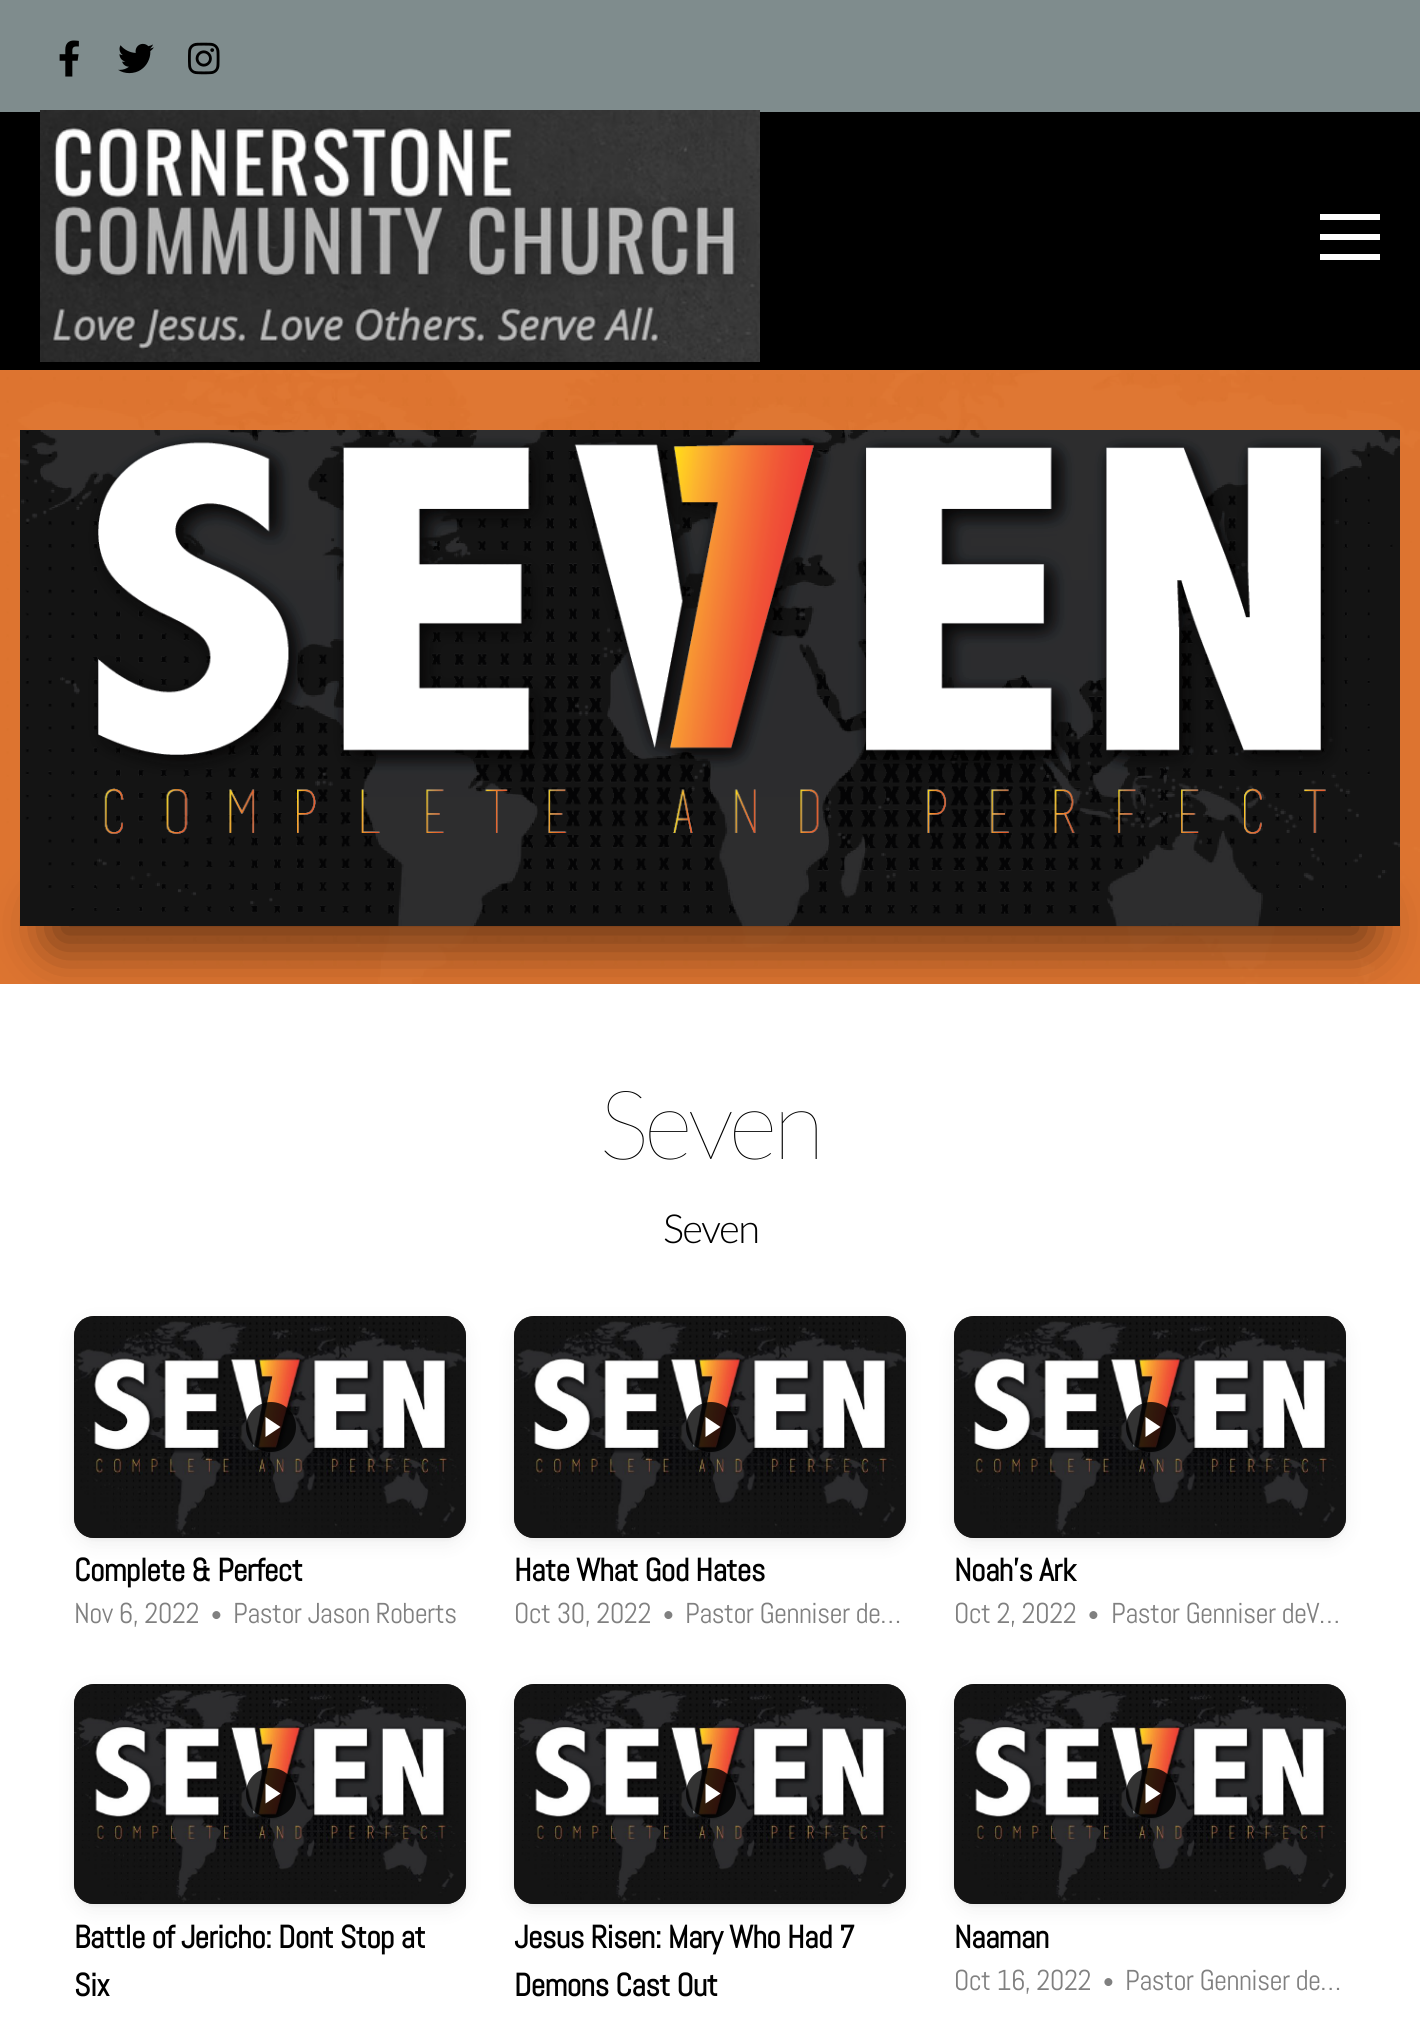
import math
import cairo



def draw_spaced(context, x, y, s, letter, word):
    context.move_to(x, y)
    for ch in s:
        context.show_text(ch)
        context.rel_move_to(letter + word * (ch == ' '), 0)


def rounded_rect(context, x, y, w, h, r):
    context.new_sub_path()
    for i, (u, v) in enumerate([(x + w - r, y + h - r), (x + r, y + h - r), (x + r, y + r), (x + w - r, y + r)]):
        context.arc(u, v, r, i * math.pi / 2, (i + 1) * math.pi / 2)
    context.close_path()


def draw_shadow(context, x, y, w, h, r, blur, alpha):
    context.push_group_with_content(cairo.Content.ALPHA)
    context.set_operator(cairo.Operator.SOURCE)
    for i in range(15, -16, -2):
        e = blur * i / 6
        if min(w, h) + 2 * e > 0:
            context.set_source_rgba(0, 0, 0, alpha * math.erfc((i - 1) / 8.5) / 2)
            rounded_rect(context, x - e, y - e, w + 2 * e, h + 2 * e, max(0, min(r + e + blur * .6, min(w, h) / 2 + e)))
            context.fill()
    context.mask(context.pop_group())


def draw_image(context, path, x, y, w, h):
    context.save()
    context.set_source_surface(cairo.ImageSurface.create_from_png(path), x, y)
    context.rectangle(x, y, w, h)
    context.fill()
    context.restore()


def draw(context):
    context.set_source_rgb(0, 0, 0)
    context.paint()
    context.set_source_rgb(127 / 255, 140 / 255, 141 / 255)
    context.rectangle(0, 0, 1420, 112)
    context.fill()
    draw_image(context, "images/1.png", 59, 40, 20, 37)
    draw_image(context, "images/2.png", 118, 43, 36, 31)
    draw_image(context, "images/3.png", 188, 42, 32, 33)
    draw_image(context, "images/4.png", 40, 110, 720, 252)
    context.set_source_rgb(1, 1, 1)
    context.rectangle(1320, 214, 60, 6)
    context.fill()
    context.rectangle(1320, 234, 60, 6)
    context.fill()
    context.rectangle(1320, 254, 60, 6)
    context.fill()
    draw_image(context, "images/5.png", 0, 370, 1420, 614)
    context.set_source_rgb(0, 0, 0)
    draw_shadow(context, 48, 904, 1324, 44, 22, 25, 0.5)
    draw_image(context, "images/6.png", 20, 430, 1380, 496)
    context.set_source_rgb(1, 1, 1)
    context.rectangle(0, 984, 1420, 1045)
    context.fill()
    context.set_source_rgb(0, 0, 0)
    draw_shadow(context, 74, 1318, 392, 222, 20, 2, 0.04)
    draw_shadow(context, 74, 1322, 392, 222, 20, 10, 0.06)
    context.set_source_rgb(72 / 255, 67 / 255, 64 / 255)
    rounded_rect(context, 74, 1316, 392, 222, 20)
    context.fill()
    draw_image(context, "images/7.png", 74, 1316, 392, 222)
    context.set_source_rgba(0, 0, 0, 0.8)
    context.arc(271, 1427, 25, 0, 2 * math.pi)
    context.fill()
    context.set_source_rgb(1, 1, 1)
    context.new_path()
    context.move_to(265.5, 1437)
    context.line_to(265.5, 1417)
    context.line_to(280.5, 1427)
    context.close_path()
    context.fill()
    context.set_source_rgb(0, 0, 0)
    draw_shadow(context, 514, 1318, 392, 222, 20, 2, 0.04)
    draw_shadow(context, 514, 1322, 392, 222, 20, 10, 0.06)
    context.set_source_rgb(72 / 255, 67 / 255, 64 / 255)
    rounded_rect(context, 514, 1316, 392, 222, 20)
    context.fill()
    draw_image(context, "images/7.png", 514, 1316, 392, 222)
    context.set_source_rgba(0, 0, 0, 0.8)
    context.arc(711, 1427, 25, 0, 2 * math.pi)
    context.fill()
    context.set_source_rgb(1, 1, 1)
    context.new_path()
    context.move_to(705.5, 1437)
    context.line_to(705.5, 1417)
    context.line_to(720.5, 1427)
    context.close_path()
    context.fill()
    context.set_source_rgb(0, 0, 0)
    draw_shadow(context, 954, 1318, 392, 222, 20, 2, 0.04)
    draw_shadow(context, 954, 1322, 392, 222, 20, 10, 0.06)
    context.set_source_rgb(72 / 255, 67 / 255, 64 / 255)
    rounded_rect(context, 954, 1316, 392, 222, 20)
    context.fill()
    draw_image(context, "images/7.png", 954, 1316, 392, 222)
    context.set_source_rgba(0, 0, 0, 0.8)
    context.arc(1151, 1427, 25, 0, 2 * math.pi)
    context.fill()
    context.set_source_rgb(1, 1, 1)
    context.new_path()
    context.move_to(1145.5, 1437)
    context.line_to(1145.5, 1417)
    context.line_to(1160.5, 1427)
    context.close_path()
    context.fill()
    context.set_source_rgb(0, 0, 0)
    draw_shadow(context, 74, 1686, 392, 220, 20, 2, 0.04)
    draw_shadow(context, 74, 1690, 392, 220, 20, 10, 0.06)
    context.set_source_rgb(72 / 255, 67 / 255, 64 / 255)
    rounded_rect(context, 74, 1684, 392, 220, 20)
    context.fill()
    draw_image(context, "images/8.png", 74, 1684, 392, 220)
    context.set_source_rgba(0, 0, 0, 0.8)
    context.arc(271, 1793, 25, 0, 2 * math.pi)
    context.fill()
    context.set_source_rgb(1, 1, 1)
    context.new_path()
    context.move_to(265.5, 1803.5)
    context.line_to(265.5, 1783.5)
    context.line_to(280.5, 1793.5)
    context.close_path()
    context.fill()
    context.set_source_rgb(0, 0, 0)
    draw_shadow(context, 514, 1686, 392, 220, 20, 2, 0.04)
    draw_shadow(context, 514, 1690, 392, 220, 20, 10, 0.06)
    context.set_source_rgb(72 / 255, 67 / 255, 64 / 255)
    rounded_rect(context, 514, 1684, 392, 220, 20)
    context.fill()
    draw_image(context, "images/9.png", 514, 1684, 392, 220)
    context.set_source_rgba(0, 0, 0, 0.8)
    context.arc(711, 1793, 25, 0, 2 * math.pi)
    context.fill()
    context.set_source_rgb(1, 1, 1)
    context.new_path()
    context.move_to(705.5, 1803.5)
    context.line_to(705.5, 1783.5)
    context.line_to(720.5, 1793.5)
    context.close_path()
    context.fill()
    context.set_source_rgb(0, 0, 0)
    draw_shadow(context, 954, 1686, 392, 220, 20, 2, 0.04)
    draw_shadow(context, 954, 1690, 392, 220, 20, 10, 0.06)
    context.set_source_rgb(72 / 255, 67 / 255, 64 / 255)
    rounded_rect(context, 954, 1684, 392, 220, 20)
    context.fill()
    draw_image(context, "images/10.png", 954, 1684, 392, 220)
    context.set_source_rgba(0, 0, 0, 0.8)
    context.arc(1151, 1793, 25, 0, 2 * math.pi)
    context.fill()
    context.set_source_rgb(1, 1, 1)
    context.new_path()
    context.move_to(1145.5, 1803.5)
    context.line_to(1145.5, 1783.5)
    context.line_to(1160.5, 1793.5)
    context.close_path()
    context.fill()
    context.select_font_face("Lato Thin")
    context.set_font_size(96)
    context.set_source_rgb(0, 0, 0)
    draw_spaced(context, 599, 1159, "Seven", -4, 0)
    context.select_font_face("Lato Light")
    context.set_font_size(40)
    draw_spaced(context, 663, 1243, "Seven", -1.5, 0)
    context.select_font_face("Abel", cairo.FontSlant.NORMAL, cairo.FontWeight.BOLD)
    context.set_font_size(32)
    draw_spaced(context, 74, 1581, "Complete & Perfect", -0.65, 0)
    context.select_font_face("Abel")
    context.set_font_size(28.75)
    context.set_source_rgb(128 / 255, 128 / 255, 128 / 255)
    draw_spaced(context, 74, 1623, "Nov 6, 2022", -0.65, 0)
    context.set_font_size(23)
    draw_spaced(context, 211, 1623, "•", -0.65, 0)
    context.set_font_size(28.75)
    draw_spaced(context, 233, 1623, "Pastor Jason Roberts", -0.65, 0)
    context.select_font_face("Abel", cairo.FontSlant.NORMAL, cairo.FontWeight.BOLD)
    context.set_font_size(32)
    context.set_source_rgb(0, 0, 0)
    draw_spaced(context, 514, 1581, "Hate What God Hates", -0.65, 0)
    context.select_font_face("Abel")
    context.set_font_size(28.75)
    context.set_source_rgb(128 / 255, 128 / 255, 128 / 255)
    draw_spaced(context, 514, 1623, "Oct 30, 2022", -0.65, 0)
    context.set_font_size(23)
    draw_spaced(context, 663, 1623, "•", -0.65, 0)
    context.set_font_size(28.75)
    draw_spaced(context, 685, 1623, "Pastor Genniser de…", -0.65, 0)
    context.select_font_face("Abel", cairo.FontSlant.NORMAL, cairo.FontWeight.BOLD)
    context.set_font_size(32)
    context.set_source_rgb(0, 0, 0)
    draw_spaced(context, 954, 1581, "Noah's Ark", -0.65, 0)
    context.select_font_face("Abel")
    context.set_font_size(28.75)
    context.set_source_rgb(128 / 255, 128 / 255, 128 / 255)
    draw_spaced(context, 954, 1623, "Oct 2, 2022", -0.65, 0)
    context.set_font_size(23)
    draw_spaced(context, 1088, 1623, "•", -0.65, 0)
    context.set_font_size(28.75)
    draw_spaced(context, 1111, 1623, "Pastor Genniser deV…", -0.65, 0)
    context.select_font_face("Abel", cairo.FontSlant.NORMAL, cairo.FontWeight.BOLD)
    context.set_font_size(32)
    context.set_source_rgb(0, 0, 0)
    draw_spaced(context, 74, 1948, "Battle of Jericho: Dont Stop at", -0.65, 0)
    draw_spaced(context, 74, 1996, "Six", -0.65, 0)
    draw_spaced(context, 514, 1948, "Jesus Risen: Mary Who Had 7", -0.65, 0)
    draw_spaced(context, 514, 1996, "Demons Cast Out", -0.65, 0)
    draw_spaced(context, 954, 1948, "Naaman", -0.65, 0)
    context.select_font_face("Abel")
    context.set_font_size(28.75)
    context.set_source_rgb(128 / 255, 128 / 255, 128 / 255)
    draw_spaced(context, 954, 1990, "Oct 16, 2022", -0.65, 0)
    context.set_font_size(23)
    draw_spaced(context, 1103, 1990, "•", -0.65, 0)
    context.set_font_size(28.75)
    draw_spaced(context, 1125, 1990, "Pastor Genniser de…", -0.65, 0)


surface = cairo.ImageSurface(cairo.Format.RGB24, 1420, 2029)
context = cairo.Context(surface)
options = cairo.FontOptions()
options.set_hint_metrics(cairo.HintMetrics.OFF)
options.set_hint_style(cairo.HintStyle.NONE)
context.set_font_options(options)
context.set_miter_limit(4)
draw(context)
surface.write_to_png("out.png")
